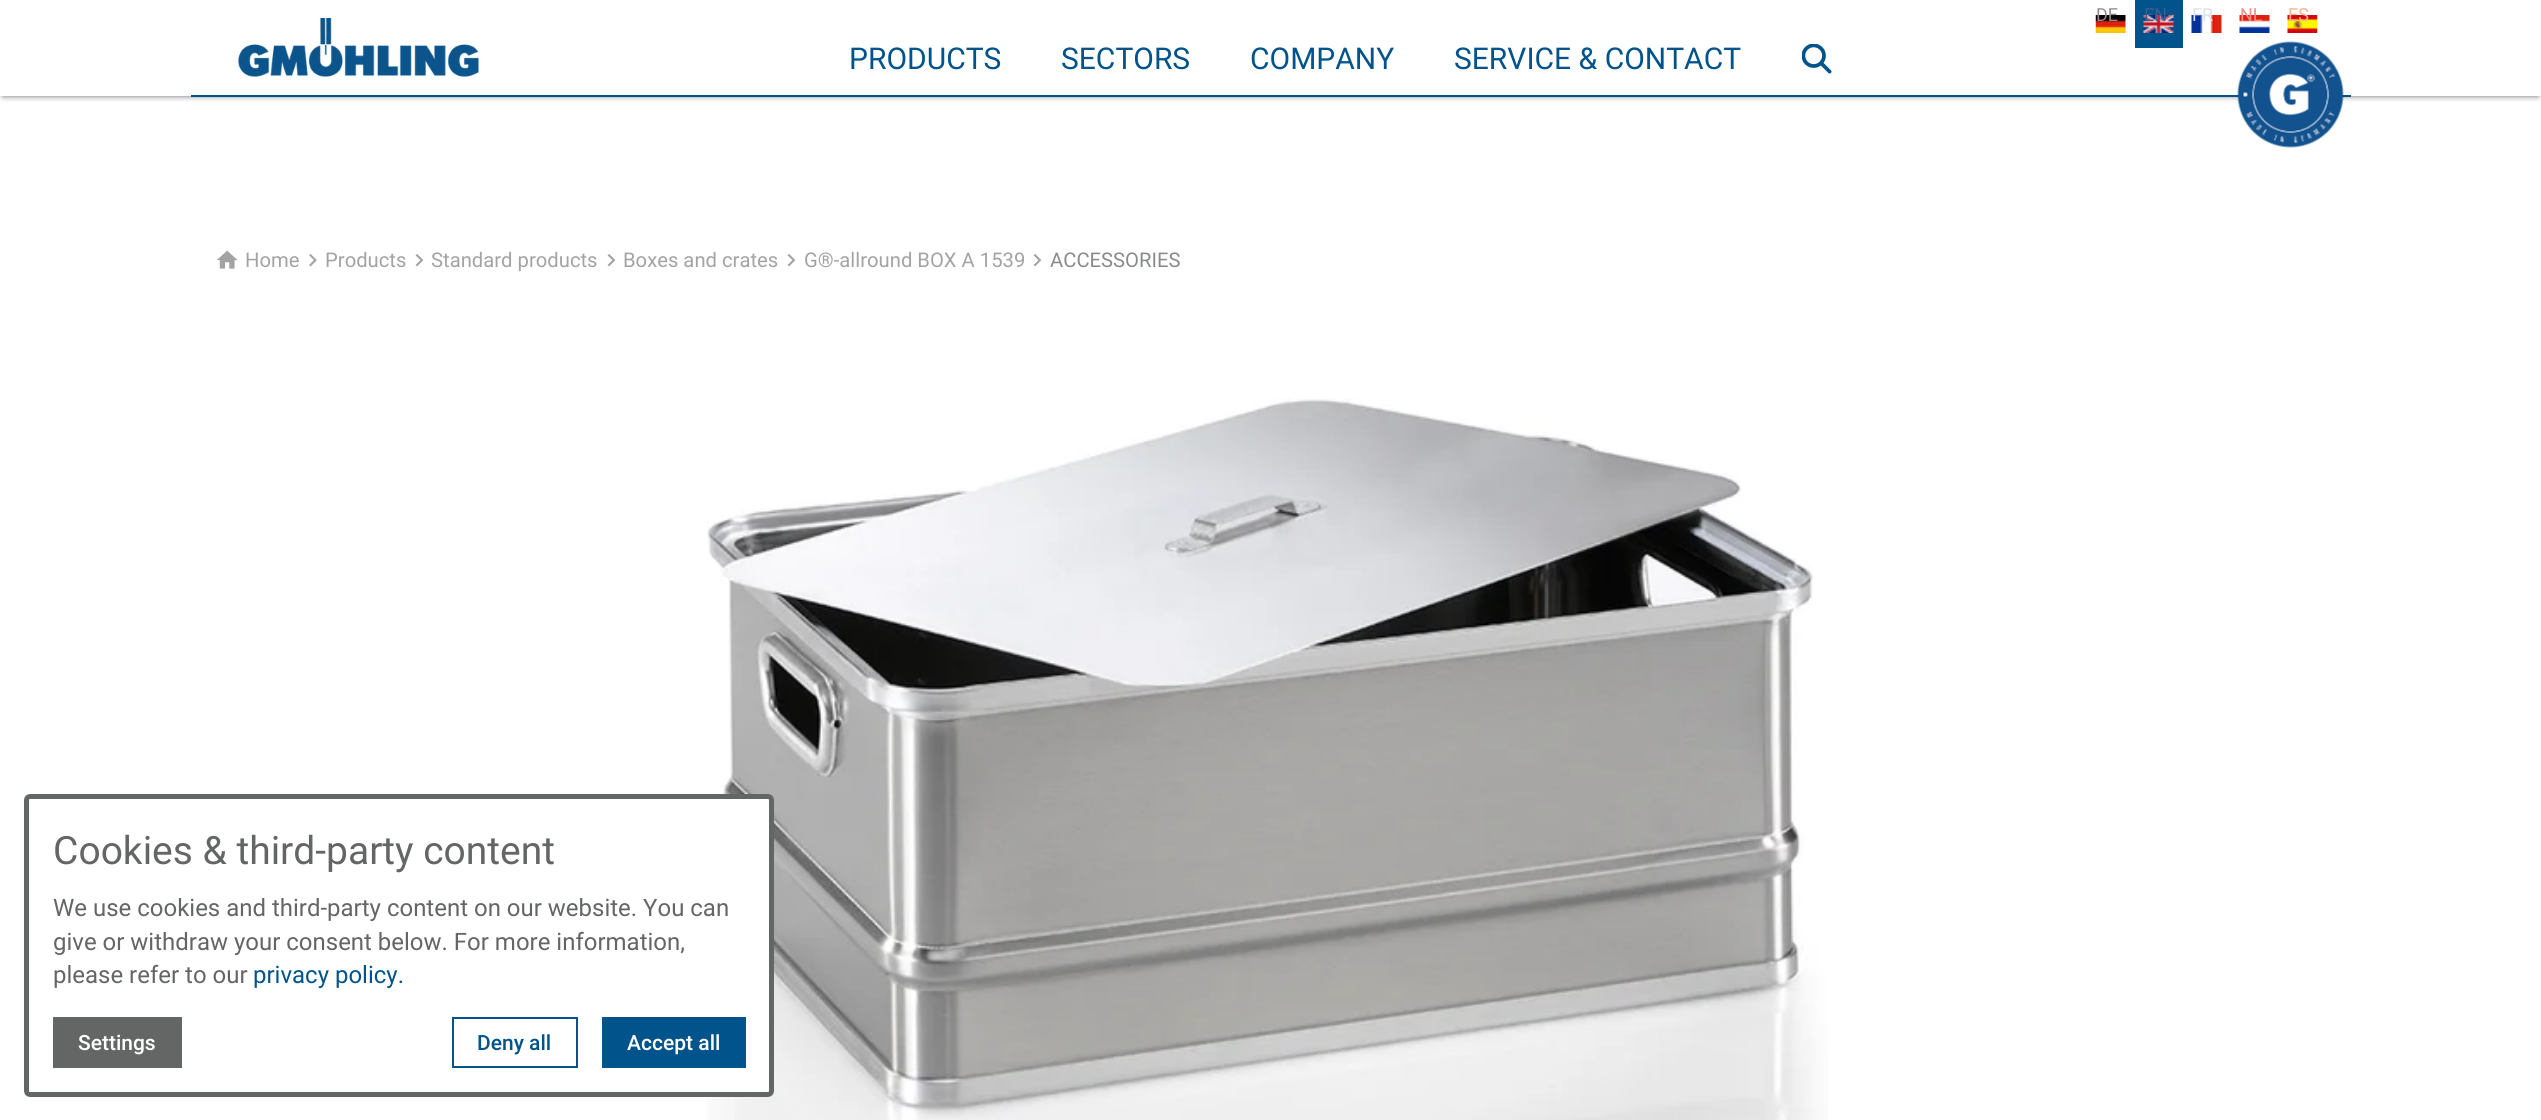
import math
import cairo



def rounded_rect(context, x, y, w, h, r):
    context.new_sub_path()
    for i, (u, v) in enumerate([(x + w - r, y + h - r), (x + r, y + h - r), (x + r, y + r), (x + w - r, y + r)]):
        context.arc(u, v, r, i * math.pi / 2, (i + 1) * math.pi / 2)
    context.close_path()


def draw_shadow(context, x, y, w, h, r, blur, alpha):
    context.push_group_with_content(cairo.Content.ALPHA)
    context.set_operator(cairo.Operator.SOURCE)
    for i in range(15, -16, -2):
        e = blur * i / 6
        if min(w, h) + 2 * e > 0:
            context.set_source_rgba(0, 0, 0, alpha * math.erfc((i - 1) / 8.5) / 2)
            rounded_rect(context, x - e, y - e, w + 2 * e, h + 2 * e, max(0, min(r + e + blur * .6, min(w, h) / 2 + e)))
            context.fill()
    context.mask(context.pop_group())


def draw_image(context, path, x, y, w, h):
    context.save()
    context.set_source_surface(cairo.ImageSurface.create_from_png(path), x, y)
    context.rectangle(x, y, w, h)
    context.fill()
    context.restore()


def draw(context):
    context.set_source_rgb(1, 1, 1)
    context.paint()
    context.save()
    context.rectangle(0, 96, 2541, 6)
    context.clip()
    context.set_source_rgb(100 / 255, 101 / 255, 101 / 255)
    draw_shadow(context, 3, 6, 2535, 90, 0, 3, 1)
    context.restore()
    context.set_source_rgb(0, 83 / 255, 139 / 255)
    context.rectangle(191, 95, 2160, 2)
    context.fill()
    draw_image(context, "images/1.png", 2095, 15, 31, 18)
    context.rectangle(2135, 0, 48, 48)
    context.fill()
    draw_image(context, "images/2.png", 2143, 15, 31, 18)
    draw_image(context, "images/3.png", 2191, 15, 31, 18)
    draw_image(context, "images/4.png", 2239, 15, 31, 18)
    draw_image(context, "images/5.png", 2287, 15, 31, 18)
    draw_image(context, "images/6.png", 238, 18, 241, 59)
    draw_image(context, "images/7.png", 1802, 44, 30, 30)
    draw_image(context, "images/8.png", 2237, 41, 107, 107)
    draw_image(context, "images/9.png", 217, 250, 21, 19)
    draw_image(context, "images/10.png", 309, 254, 8, 13)
    draw_image(context, "images/11.png", 415, 254, 9, 13)
    draw_image(context, "images/11.png", 607, 254, 9, 13)
    draw_image(context, "images/11.png", 787, 254, 9, 13)
    draw_image(context, "images/11.png", 1033, 254, 9, 13)
    draw_image(context, "images/12.png", 707, 398, 1121, 722)
    context.set_source_rgb(1, 1, 1)
    rounded_rect(context, 26.5, 796.5, 745, 298, 3.5)
    context.fill_preserve()
    context.set_source_rgb(100 / 255, 101 / 255, 101 / 255)
    context.set_line_width(5)
    context.stroke()
    context.rectangle(53, 1017, 129, 51)
    context.fill()
    context.rectangle(453, 1018, 124, 49)
    context.set_source_rgb(0, 83 / 255, 139 / 255)
    context.set_line_width(2)
    context.stroke()
    context.rectangle(602, 1017, 144, 51)
    context.fill()
    context.select_font_face("Roboto")
    context.set_font_size(18)
    context.set_source_rgb(145 / 255, 141 / 255, 141 / 255)
    context.move_to(2096, 21)
    context.show_text("DE")
    context.set_source_rgb(57 / 255, 94 / 255, 144 / 255)
    context.move_to(2144, 21)
    context.show_text("EN")
    context.set_source_rgb(221 / 255, 224 / 255, 237 / 255)
    context.move_to(2192, 21)
    context.show_text("FR")
    context.set_source_rgb(238 / 255, 145 / 255, 137 / 255)
    context.move_to(2240, 21)
    context.show_text("NL")
    context.set_source_rgb(242 / 255, 181 / 255, 140 / 255)
    context.move_to(2288, 21)
    context.show_text("ES")
    context.set_font_size(30)
    context.set_source_rgb(0, 83 / 255, 139 / 255)
    context.move_to(849, 69)
    context.show_text("PRODUCTS")
    context.move_to(1061, 69)
    context.show_text("SECTORS")
    context.move_to(1250, 69)
    context.show_text("COMPANY")
    context.move_to(1454, 69)
    context.show_text("SERVICE & CONTACT")
    context.set_font_size(20.25)
    context.set_source_rgb(163 / 255, 163 / 255, 163 / 255)
    context.move_to(245, 267)
    context.show_text("Home")
    context.move_to(325, 267)
    context.show_text("Products")
    context.move_to(431, 267)
    context.show_text("Standard products")
    context.move_to(623, 267)
    context.show_text("Boxes and crates")
    context.move_to(804, 267)
    context.show_text("G®-allround BOX A 1539")
    context.set_source_rgb(137 / 255, 138 / 255, 140 / 255)
    context.move_to(1050, 267)
    context.show_text("ACCESSORIES")
    context.set_font_size(39)
    context.set_source_rgb(100 / 255, 101 / 255, 101 / 255)
    context.move_to(53, 864)
    context.show_text("Cookies & third-party content")
    context.set_font_size(24)
    context.move_to(53, 916)
    context.show_text("We use cookies and third-party content on our website. You can")
    context.move_to(53, 950)
    context.show_text("give or withdraw your consent below. For more information,")
    context.move_to(53, 983)
    context.show_text("please refer to our")
    context.set_source_rgb(0, 83 / 255, 139 / 255)
    context.move_to(253, 983)
    context.show_text("privacy policy.")
    context.select_font_face("Roboto Medium")
    context.set_font_size(21)
    context.set_source_rgb(1, 1, 1)
    context.move_to(78, 1050)
    context.show_text("Settings")
    context.set_source_rgb(0, 83 / 255, 139 / 255)
    context.move_to(477, 1050)
    context.show_text("Deny all")
    context.set_source_rgb(1, 1, 1)
    context.move_to(627, 1050)
    context.show_text("Accept all")


surface = cairo.ImageSurface(cairo.Format.RGB24, 2541, 1120)
context = cairo.Context(surface)
options = cairo.FontOptions()
options.set_hint_metrics(cairo.HintMetrics.OFF)
options.set_hint_style(cairo.HintStyle.NONE)
context.set_font_options(options)
context.set_miter_limit(4)
draw(context)
surface.write_to_png("out.png")
